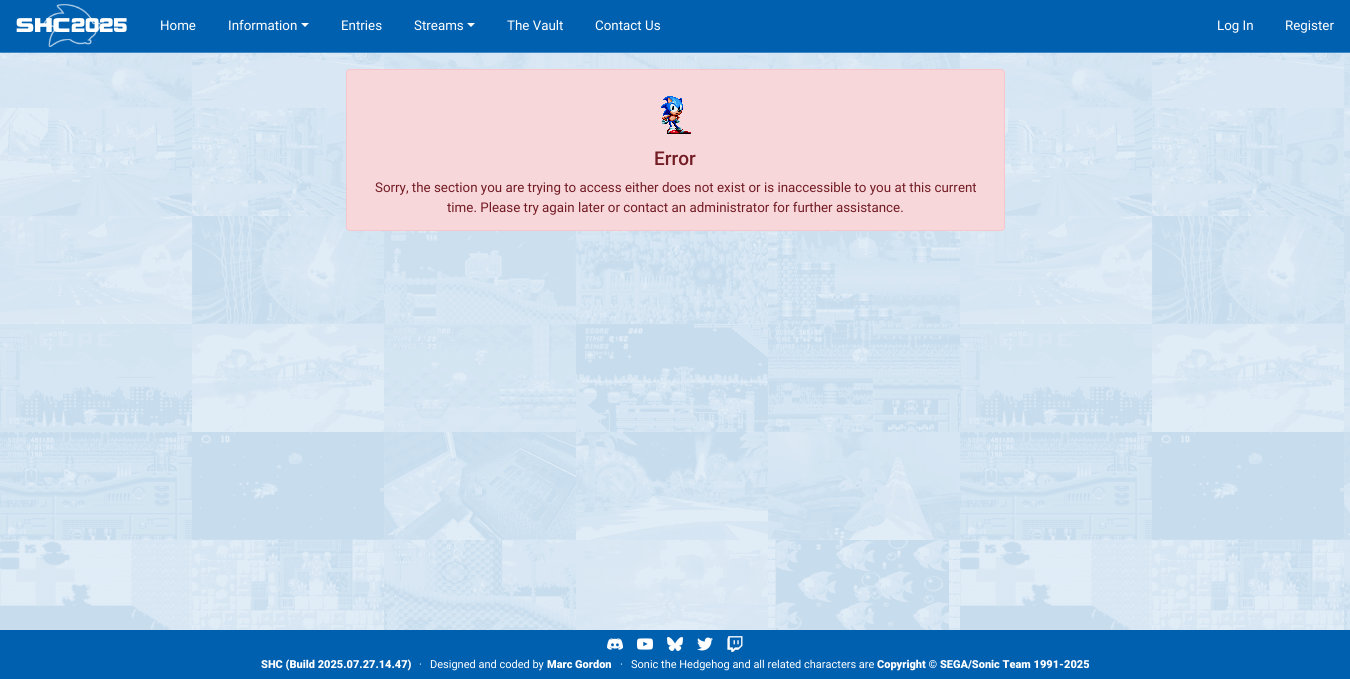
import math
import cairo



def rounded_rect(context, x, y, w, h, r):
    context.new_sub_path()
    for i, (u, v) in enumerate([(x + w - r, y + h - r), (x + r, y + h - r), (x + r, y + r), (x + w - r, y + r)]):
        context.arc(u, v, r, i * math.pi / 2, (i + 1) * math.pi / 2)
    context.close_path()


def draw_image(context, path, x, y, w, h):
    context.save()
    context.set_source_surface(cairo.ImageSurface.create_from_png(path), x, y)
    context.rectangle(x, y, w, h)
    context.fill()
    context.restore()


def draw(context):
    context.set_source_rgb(192 / 255, 216 / 255, 236 / 255)
    context.paint()
    draw_image(context, "images/1.png", 0, 53, 1350, 577)
    context.set_source_rgb(0, 96 / 255, 176 / 255)
    context.rectangle(0, 0, 1350, 52)
    context.fill()
    context.set_source_rgb(64 / 255, 136 / 255, 196 / 255)
    context.rectangle(0, 52, 1350, 1)
    context.fill()
    context.set_source_rgb(1, 1, 1)
    context.new_path()
    context.move_to(301, 23)
    context.line_to(309, 23)
    context.line_to(305, 27)
    context.close_path()
    context.fill()
    context.new_path()
    context.move_to(467, 23)
    context.line_to(475, 23)
    context.line_to(471, 27)
    context.close_path()
    context.fill()
    context.set_source_rgb(248 / 255, 215 / 255, 218 / 255)
    rounded_rect(context, 346.5, 69.5, 658, 161, 3.5)
    context.fill_preserve()
    context.set_source_rgb(245 / 255, 198 / 255, 203 / 255)
    context.set_line_width(1)
    context.stroke()
    draw_image(context, "images/3.png", 661, 96, 30, 38)
    context.set_source_rgb(0, 96 / 255, 176 / 255)
    context.rectangle(0, 630, 1350, 49)
    context.fill()
    draw_image(context, "images/4.png", 607, 638, 16, 12)
    draw_image(context, "images/5.png", 637, 638, 16, 12)
    draw_image(context, "images/6.png", 667, 637, 16, 14)
    draw_image(context, "images/7.png", 697, 637, 16, 14)
    draw_image(context, "images/8.png", 727, 636, 16, 16)
    context.select_font_face("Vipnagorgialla")
    context.set_font_size(21)
    context.set_source_rgb(1, 1, 1)
    context.move_to(16, 32)
    context.show_text("SHC")
    context.select_font_face("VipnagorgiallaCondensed")
    context.move_to(71, 32)
    context.show_text("2025")
    draw_image(context, "images/2.png", 43, 4, 58, 43)
    context.select_font_face("Roboto")
    context.set_font_size(13.35)
    context.move_to(160, 30)
    context.show_text("Home")
    context.move_to(228, 30)
    context.show_text("Information")
    context.move_to(341, 30)
    context.show_text("Entries")
    context.move_to(414, 30)
    context.show_text("Streams")
    context.move_to(507, 30)
    context.show_text("The Vault")
    context.move_to(595, 30)
    context.show_text("Contact Us")
    context.move_to(1217, 30)
    context.show_text("Log In")
    context.move_to(1285, 30)
    context.show_text("Register")
    context.select_font_face("Roboto Medium")
    context.set_font_size(19)
    context.set_source_rgb(114 / 255, 28 / 255, 36 / 255)
    context.move_to(654, 165)
    context.show_text("Error")
    context.select_font_face("Roboto")
    context.set_font_size(13.35)
    context.move_to(375, 192)
    context.show_text("Sorry, the section you are trying to access either does not exist or is inaccessible to you at this current")
    context.move_to(447, 212)
    context.show_text("time. Please try again later or contact an administrator for further assistance.")
    context.select_font_face("Roboto Black")
    context.set_font_size(11)
    context.set_source_rgb(1, 1, 1)
    context.move_to(261, 668)
    context.show_text("SHC (Build 2025.07.27.14.47)")
    context.select_font_face("Roboto")
    context.move_to(419, 668)
    context.show_text("·")
    context.move_to(430, 668)
    context.show_text("Designed and coded by")
    context.select_font_face("Roboto Black")
    context.move_to(547, 668)
    context.show_text("Marc Gordon")
    context.select_font_face("Roboto")
    context.move_to(620, 668)
    context.show_text("·")
    context.move_to(631, 668)
    context.show_text("Sonic the Hedgehog and all related characters are")
    context.select_font_face("Roboto Black")
    context.move_to(877, 668)
    context.show_text("Copyright © SEGA/Sonic Team 1991-2025")


surface = cairo.ImageSurface(cairo.Format.RGB24, 1350, 679)
context = cairo.Context(surface)
options = cairo.FontOptions()
options.set_hint_metrics(cairo.HintMetrics.OFF)
options.set_hint_style(cairo.HintStyle.NONE)
context.set_font_options(options)
context.set_miter_limit(4)
draw(context)
surface.write_to_png("out.png")
